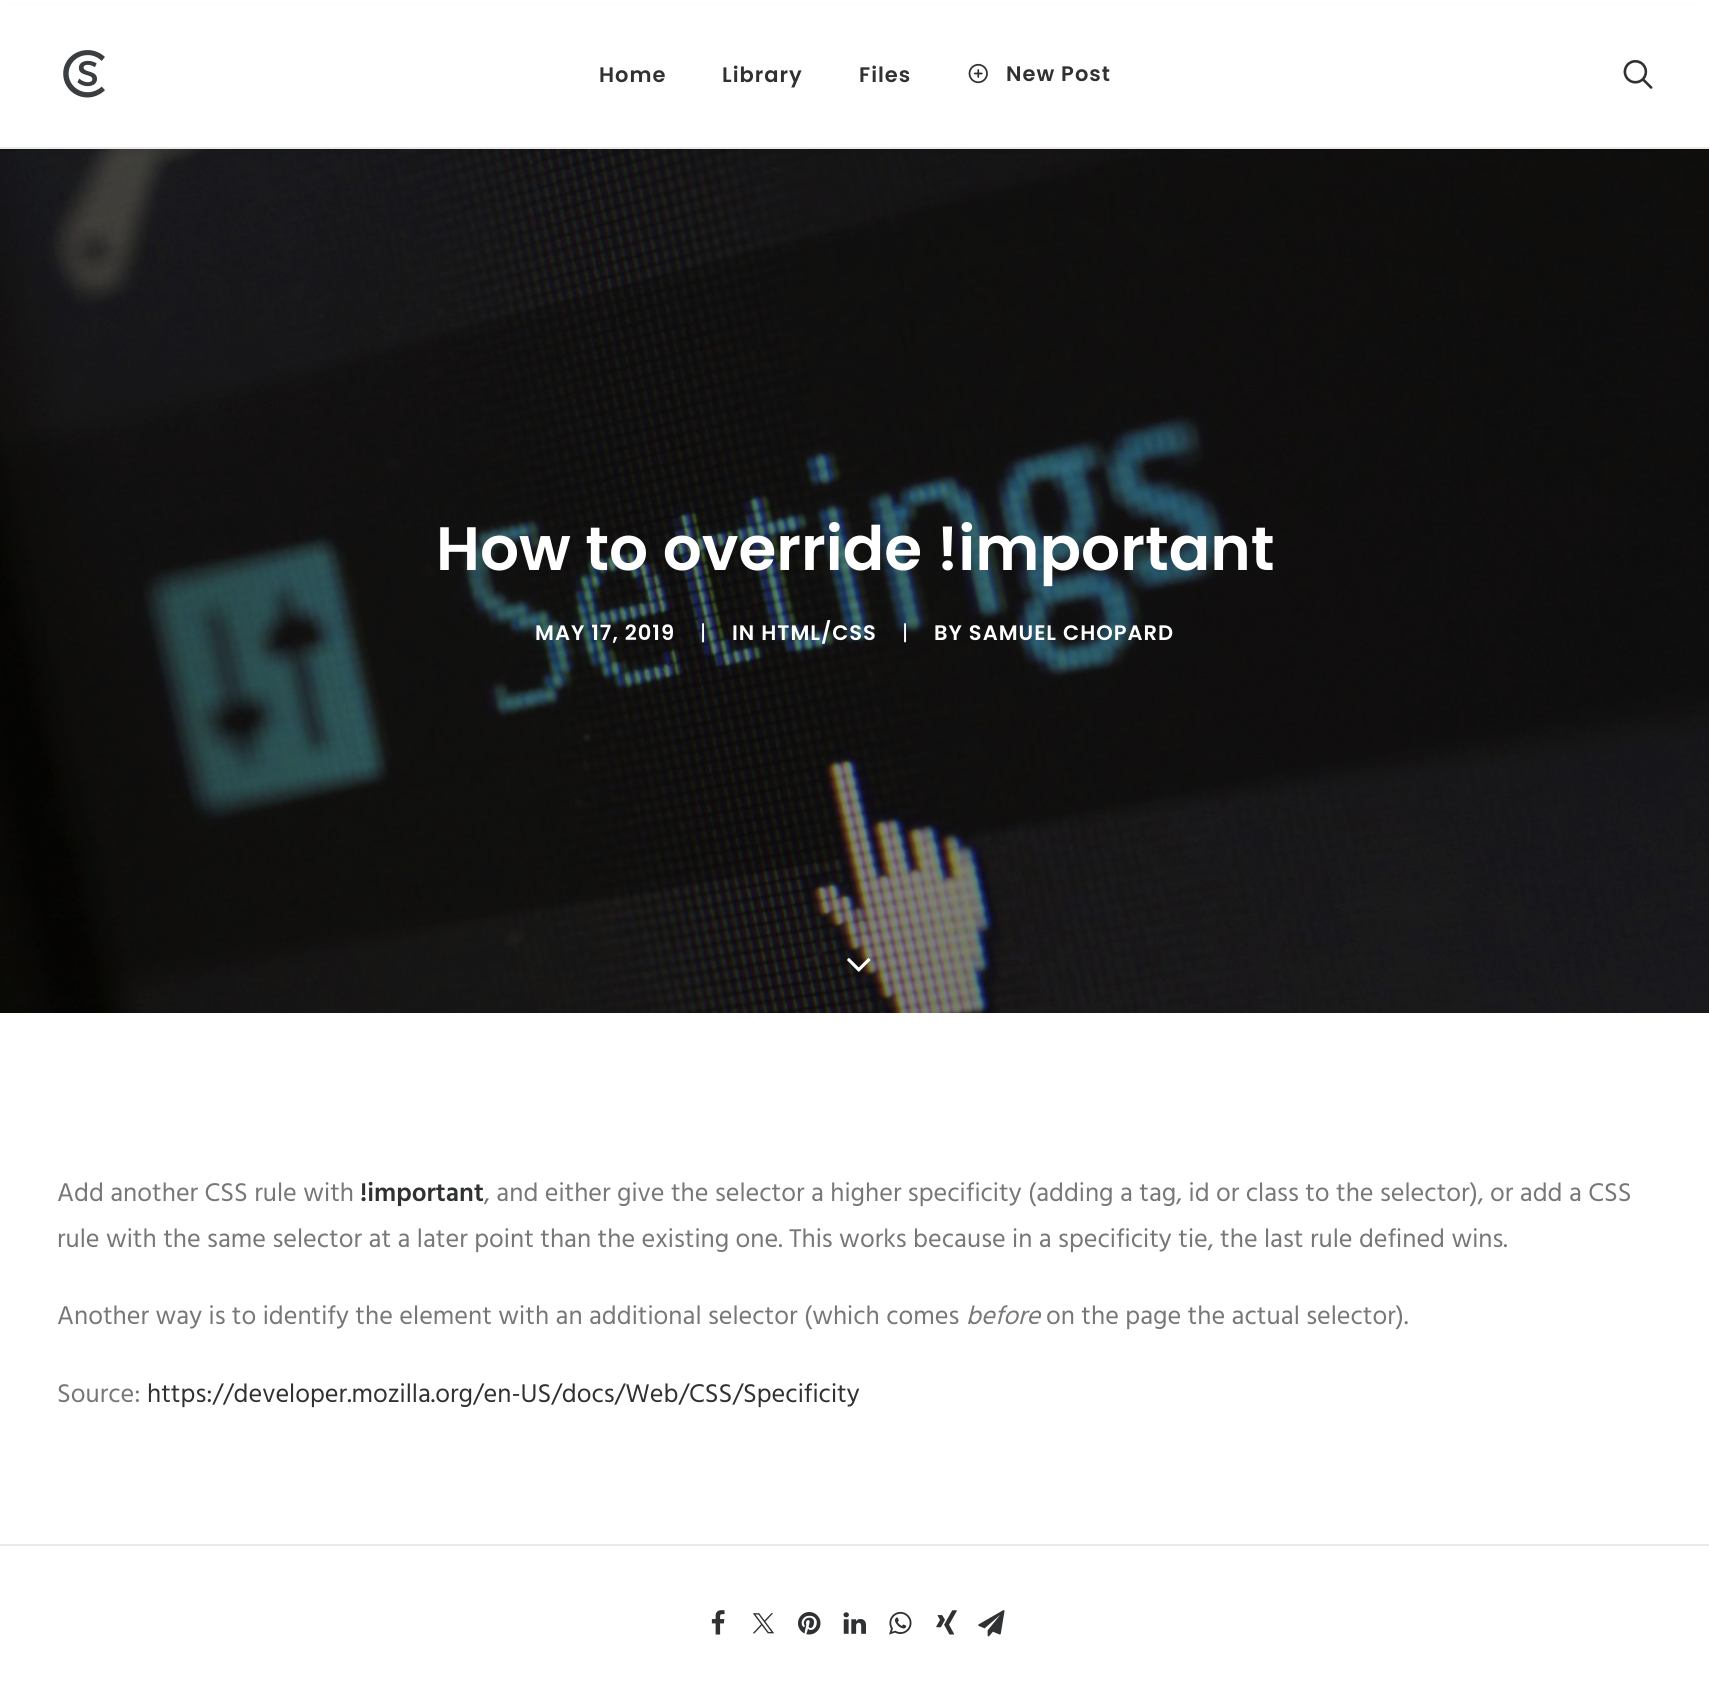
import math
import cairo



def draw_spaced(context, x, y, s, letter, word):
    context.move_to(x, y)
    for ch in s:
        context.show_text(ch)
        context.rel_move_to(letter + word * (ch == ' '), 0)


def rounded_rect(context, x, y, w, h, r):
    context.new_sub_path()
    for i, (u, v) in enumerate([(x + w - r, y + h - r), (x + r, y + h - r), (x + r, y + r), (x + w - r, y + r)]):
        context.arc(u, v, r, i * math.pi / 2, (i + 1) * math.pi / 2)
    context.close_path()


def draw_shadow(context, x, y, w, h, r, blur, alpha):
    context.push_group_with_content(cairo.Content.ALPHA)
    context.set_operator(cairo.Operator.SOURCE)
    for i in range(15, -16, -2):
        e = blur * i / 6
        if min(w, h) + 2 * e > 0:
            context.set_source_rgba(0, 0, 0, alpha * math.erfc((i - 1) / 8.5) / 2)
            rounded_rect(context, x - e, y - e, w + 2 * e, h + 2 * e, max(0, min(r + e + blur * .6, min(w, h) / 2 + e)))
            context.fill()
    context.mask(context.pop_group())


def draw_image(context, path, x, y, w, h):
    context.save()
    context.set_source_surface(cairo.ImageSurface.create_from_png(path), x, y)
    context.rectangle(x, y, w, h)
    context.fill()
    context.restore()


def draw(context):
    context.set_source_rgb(1, 1, 1)
    context.paint()
    draw_image(context, "images/4.png", 0, 149, 1709, 864)
    context.set_source_rgb(0, 0, 0)
    draw_shadow(context, 12, 25, 1687, 113, 0, 9, 0.6)
    context.set_source_rgb(1, 1, 1)
    context.rectangle(0, 6, 1709, 141)
    context.fill()
    context.set_source_rgb(234 / 255, 234 / 255, 234 / 255)
    context.rectangle(0, 147, 1709, 2)
    context.fill()
    draw_image(context, "images/1.png", 63, 50, 42, 48)
    draw_image(context, "images/2.png", 968, 63, 20, 21)
    draw_image(context, "images/3.png", 1623, 59, 30, 30)
    draw_image(context, "images/5.png", 847, 958, 24, 14)
    context.rectangle(0, 1544, 1709, 2)
    context.fill()
    draw_image(context, "images/6.png", 711, 1610, 14, 25)
    draw_image(context, "images/7.png", 752, 1613, 23, 21)
    draw_image(context, "images/8.png", 798, 1612, 23, 23)
    draw_image(context, "images/9.png", 843, 1612, 23, 22)
    draw_image(context, "images/10.png", 889, 1611, 23, 24)
    draw_image(context, "images/11.png", 936, 1610, 21, 25)
    draw_image(context, "images/12.png", 978, 1610, 27, 27)
    context.select_font_face("Poppins SemiBold")
    context.set_font_size(21)
    context.set_source_rgb(48 / 255, 49 / 255, 51 / 255)
    draw_spaced(context, 599, 82, "Home", 1, 0)
    draw_spaced(context, 722, 82, "Library", 1, 0)
    draw_spaced(context, 859, 82, "Files", 1, 0)
    draw_spaced(context, 1006, 81, "New Post", 1, 0)
    context.set_font_size(61.25)
    context.set_source_rgb(1, 1, 1)
    context.move_to(436, 570)
    context.show_text("How to override !important")
    context.set_font_size(21)
    draw_spaced(context, 535, 640, "MAY 17, 2019", 1, 0)
    context.select_font_face("Poppins")
    draw_spaced(context, 700, 640, "|", 1, 0)
    context.select_font_face("Poppins SemiBold")
    draw_spaced(context, 732, 640, "IN HTML/CSS", 1, 0)
    context.select_font_face("Poppins")
    draw_spaced(context, 902, 640, "|", 1, 0)
    context.select_font_face("Poppins SemiBold")
    draw_spaced(context, 934, 640, "BY SAMUEL CHOPARD", 1, 0)
    context.select_font_face("Hind")
    context.set_font_size(26.25)
    context.set_source_rgb(119 / 255, 119 / 255, 119 / 255)
    context.move_to(57, 1201)
    context.show_text("Add another CSS rule with")
    context.select_font_face("Hind SemiBold")
    context.set_source_rgb(48 / 255, 49 / 255, 51 / 255)
    context.move_to(360, 1201)
    context.show_text("!important")
    context.select_font_face("Hind")
    context.set_source_rgb(119 / 255, 119 / 255, 119 / 255)
    context.move_to(484, 1201)
    context.show_text(", and either give the selector a higher specificity (adding a tag, id or class to the selector), or add a CSS")
    context.move_to(57, 1247)
    context.show_text("rule with the same selector at a later point than the existing one. This works because in a specificity tie, the last rule defined wins.")
    context.move_to(57, 1324)
    context.show_text("Another way is to identify the element with an additional selector (which comes")
    context.select_font_face("Hind", cairo.FontSlant.ITALIC)
    context.move_to(966, 1324)
    context.show_text("before")
    context.select_font_face("Hind")
    context.move_to(1046, 1324)
    context.show_text("on the page the actual selector).")
    context.move_to(57, 1402)
    context.show_text("Source:")
    context.set_source_rgb(48 / 255, 49 / 255, 51 / 255)
    context.move_to(147, 1402)
    context.show_text("https://developer.mozilla.org/en-US/docs/Web/CSS/Specificity")


surface = cairo.ImageSurface(cairo.Format.RGB24, 1709, 1691)
context = cairo.Context(surface)
options = cairo.FontOptions()
options.set_hint_metrics(cairo.HintMetrics.OFF)
options.set_hint_style(cairo.HintStyle.NONE)
context.set_font_options(options)
context.set_miter_limit(4)
draw(context)
surface.write_to_png("out.png")
